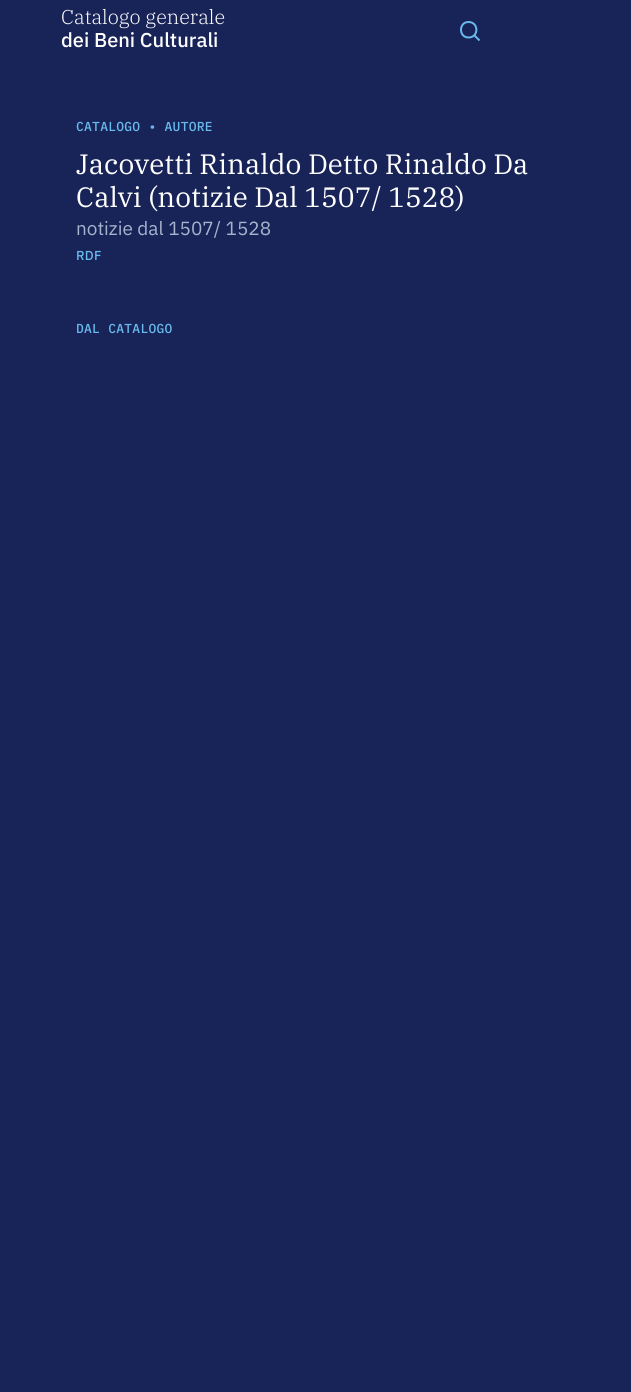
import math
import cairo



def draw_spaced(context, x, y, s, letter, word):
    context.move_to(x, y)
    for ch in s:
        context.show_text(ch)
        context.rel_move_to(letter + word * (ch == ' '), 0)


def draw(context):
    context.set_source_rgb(24 / 255, 35 / 255, 88 / 255)
    context.paint()
    context.new_path()
    context.move_to(468.5, 37.5)
    context.curve_to(479, 37.5, 479, 22, 468.5, 22)
    context.curve_to(458.5, 22, 458.5, 37.5, 468.5, 37.5)
    context.close_path()
    context.move_to(474.5, 35.5)
    context.line_to(479.5, 40.5)
    context.set_source_rgb(105 / 255, 185 / 255, 236 / 255)
    context.stroke()
    context.select_font_face("IBM Plex Serif Light")
    context.set_font_size(20)
    context.set_source_rgb(1, 1, 1)
    context.move_to(61, 24)
    context.show_text("Catalogo generale")
    context.select_font_face("IBM Plex Sans Medium")
    context.move_to(61, 47)
    context.show_text("dei Beni Culturali")
    context.select_font_face("IBM Plex Mono Medium")
    context.set_font_size(13)
    context.set_source_rgb(105 / 255, 185 / 255, 236 / 255)
    draw_spaced(context, 76, 131, "CATALOGO • AUTORE", 0.25, 0)
    context.select_font_face("IBM Plex Serif")
    context.set_font_size(28)
    context.set_source_rgb(1, 1, 1)
    context.move_to(76, 174)
    context.show_text("Jacovetti Rinaldo Detto Rinaldo Da")
    context.move_to(76, 207)
    context.show_text("Calvi (notizie Dal 1507/ 1528)")
    context.select_font_face("IBM Plex Sans")
    context.set_font_size(19)
    context.set_source_rgb(167 / 255, 178 / 255, 204 / 255)
    context.move_to(76, 235)
    context.show_text("notizie dal 1507/ 1528")
    context.select_font_face("IBM Plex Sans Medium")
    context.set_font_size(13)
    context.set_source_rgb(105 / 255, 185 / 255, 236 / 255)
    draw_spaced(context, 76, 260, "RDF", 0.25, 0)
    context.select_font_face("IBM Plex Mono Medium")
    draw_spaced(context, 76, 333, "DAL CATALOGO", 0.25, 0)


surface = cairo.ImageSurface(cairo.Format.RGB24, 631, 1392)
context = cairo.Context(surface)
options = cairo.FontOptions()
options.set_hint_metrics(cairo.HintMetrics.OFF)
options.set_hint_style(cairo.HintStyle.NONE)
context.set_font_options(options)
context.set_miter_limit(4)
draw(context)
surface.write_to_png("out.png")
